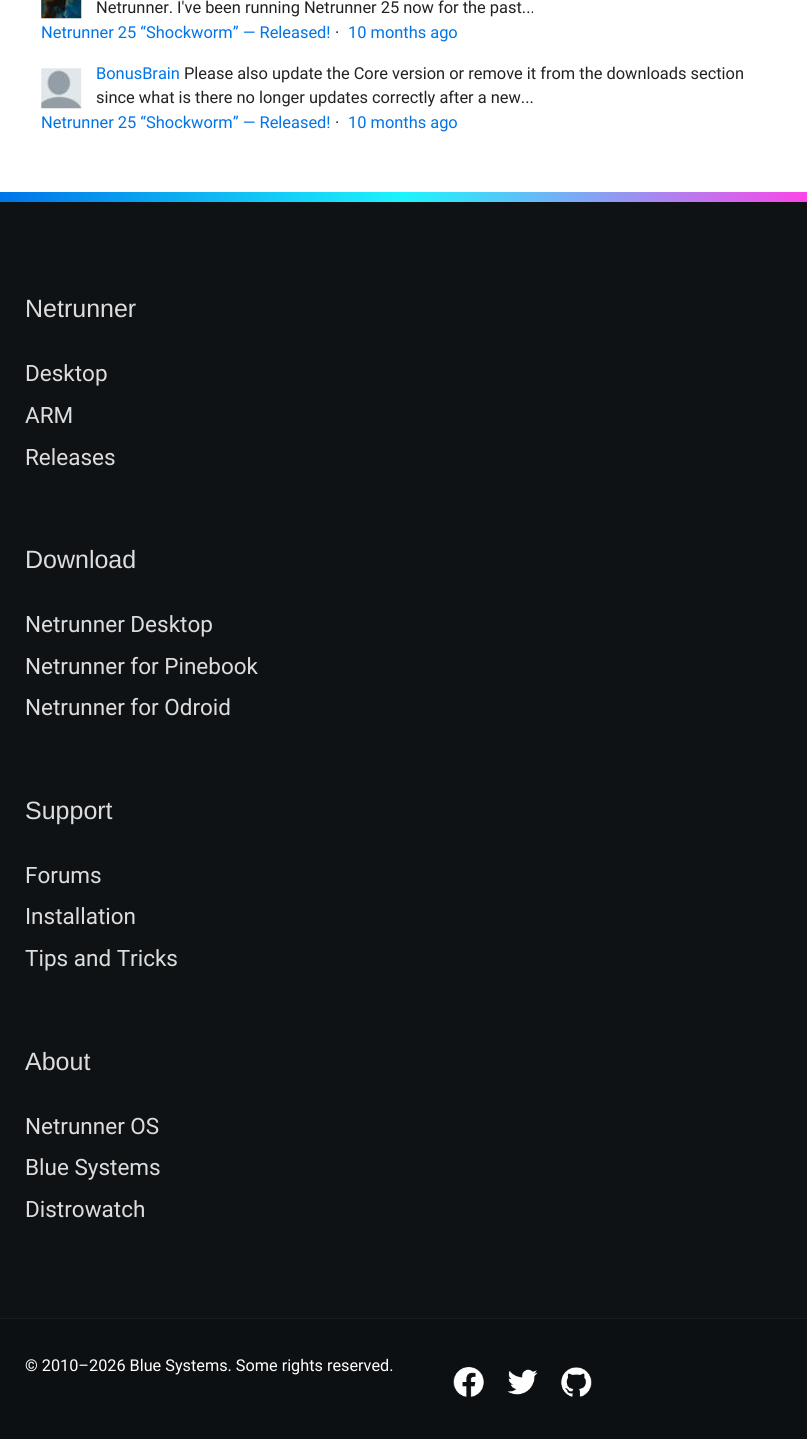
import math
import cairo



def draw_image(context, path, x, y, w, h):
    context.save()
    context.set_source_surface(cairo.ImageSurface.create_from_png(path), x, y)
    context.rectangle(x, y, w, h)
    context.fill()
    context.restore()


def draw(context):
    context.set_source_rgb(1, 1, 1)
    context.paint()
    draw_image(context, "images/1.png", 41, 0, 41, 19)
    draw_image(context, "images/2.png", 41, 68, 41, 41)
    context.set_source_rgb(15 / 255, 18 / 255, 21 / 255)
    context.rectangle(0, 202, 807, 1116)
    context.fill()
    draw_image(context, "images/3.png", 0, 192, 807, 10)
    context.set_source_rgb(24 / 255, 29 / 255, 34 / 255)
    context.rectangle(0, 1318, 807, 1)
    context.fill()
    context.set_source_rgb(13 / 255, 16 / 255, 19 / 255)
    context.rectangle(0, 1319, 807, 120)
    context.fill()
    draw_image(context, "images/4.png", 453, 1367, 31, 30)
    draw_image(context, "images/5.png", 507, 1369, 31, 26)
    draw_image(context, "images/6.png", 561, 1367, 31, 30)
    context.select_font_face("Roboto")
    context.set_font_size(16.4)
    context.set_source_rgb(34 / 255, 34 / 255, 34 / 255)
    context.move_to(96, 13)
    context.show_text("Netrunner. I've been running Netrunner 25 now for the past...")
    context.set_source_rgb(0, 116 / 255, 232 / 255)
    context.move_to(41, 38)
    context.show_text("Netrunner 25 “Shockworm” — Released!")
    context.set_source_rgb(34 / 255, 34 / 255, 34 / 255)
    context.move_to(335, 38)
    context.show_text("·")
    context.set_source_rgb(0, 116 / 255, 232 / 255)
    context.move_to(348, 38)
    context.show_text("10 months ago")
    context.move_to(96, 79)
    context.show_text("BonusBrain")
    context.set_source_rgb(34 / 255, 34 / 255, 34 / 255)
    context.move_to(184, 79)
    context.show_text("Please also update the Core version or remove it from the downloads section")
    context.move_to(96, 103)
    context.show_text("since what is there no longer updates correctly after a new...")
    context.set_source_rgb(0, 116 / 255, 232 / 255)
    context.move_to(41, 128)
    context.show_text("Netrunner 25 “Shockworm” — Released!")
    context.set_source_rgb(34 / 255, 34 / 255, 34 / 255)
    context.move_to(335, 128)
    context.show_text("·")
    context.set_source_rgb(0, 116 / 255, 232 / 255)
    context.move_to(348, 128)
    context.show_text("10 months ago")
    context.select_font_face("Liberation Sans")
    context.set_font_size(25)
    context.set_source_rgb(221 / 255, 221 / 255, 221 / 255)
    context.move_to(25, 317)
    context.show_text("Netrunner")
    context.select_font_face("Roboto")
    context.set_font_size(22.5)
    context.move_to(25, 381)
    context.show_text("Desktop")
    context.move_to(25, 423)
    context.show_text("ARM")
    context.move_to(25, 465)
    context.show_text("Releases")
    context.select_font_face("Liberation Sans")
    context.set_font_size(25)
    context.move_to(25, 568)
    context.show_text("Download")
    context.select_font_face("Roboto")
    context.set_font_size(22.5)
    context.move_to(25, 632)
    context.show_text("Netrunner Desktop")
    context.move_to(25, 674)
    context.show_text("Netrunner for Pinebook")
    context.move_to(25, 715)
    context.show_text("Netrunner for Odroid")
    context.select_font_face("Liberation Sans")
    context.set_font_size(25)
    context.move_to(25, 819)
    context.show_text("Support")
    context.select_font_face("Roboto")
    context.set_font_size(22.5)
    context.move_to(25, 883)
    context.show_text("Forums")
    context.move_to(25, 924)
    context.show_text("Installation")
    context.move_to(25, 966)
    context.show_text("Tips and Tricks")
    context.select_font_face("Liberation Sans")
    context.set_font_size(25)
    context.move_to(25, 1070)
    context.show_text("About")
    context.select_font_face("Roboto")
    context.set_font_size(22.5)
    context.move_to(25, 1134)
    context.show_text("Netrunner OS")
    context.move_to(25, 1175)
    context.show_text("Blue Systems")
    context.move_to(25, 1217)
    context.show_text("Distrowatch")
    context.set_font_size(16.25)
    context.set_source_rgb(1, 1, 1)
    context.move_to(25, 1371)
    context.show_text("© 2010–2026 Blue Systems. Some rights reserved.")


surface = cairo.ImageSurface(cairo.Format.RGB24, 807, 1439)
context = cairo.Context(surface)
options = cairo.FontOptions()
options.set_hint_metrics(cairo.HintMetrics.OFF)
options.set_hint_style(cairo.HintStyle.NONE)
context.set_font_options(options)
context.set_miter_limit(4)
draw(context)
surface.write_to_png("out.png")
